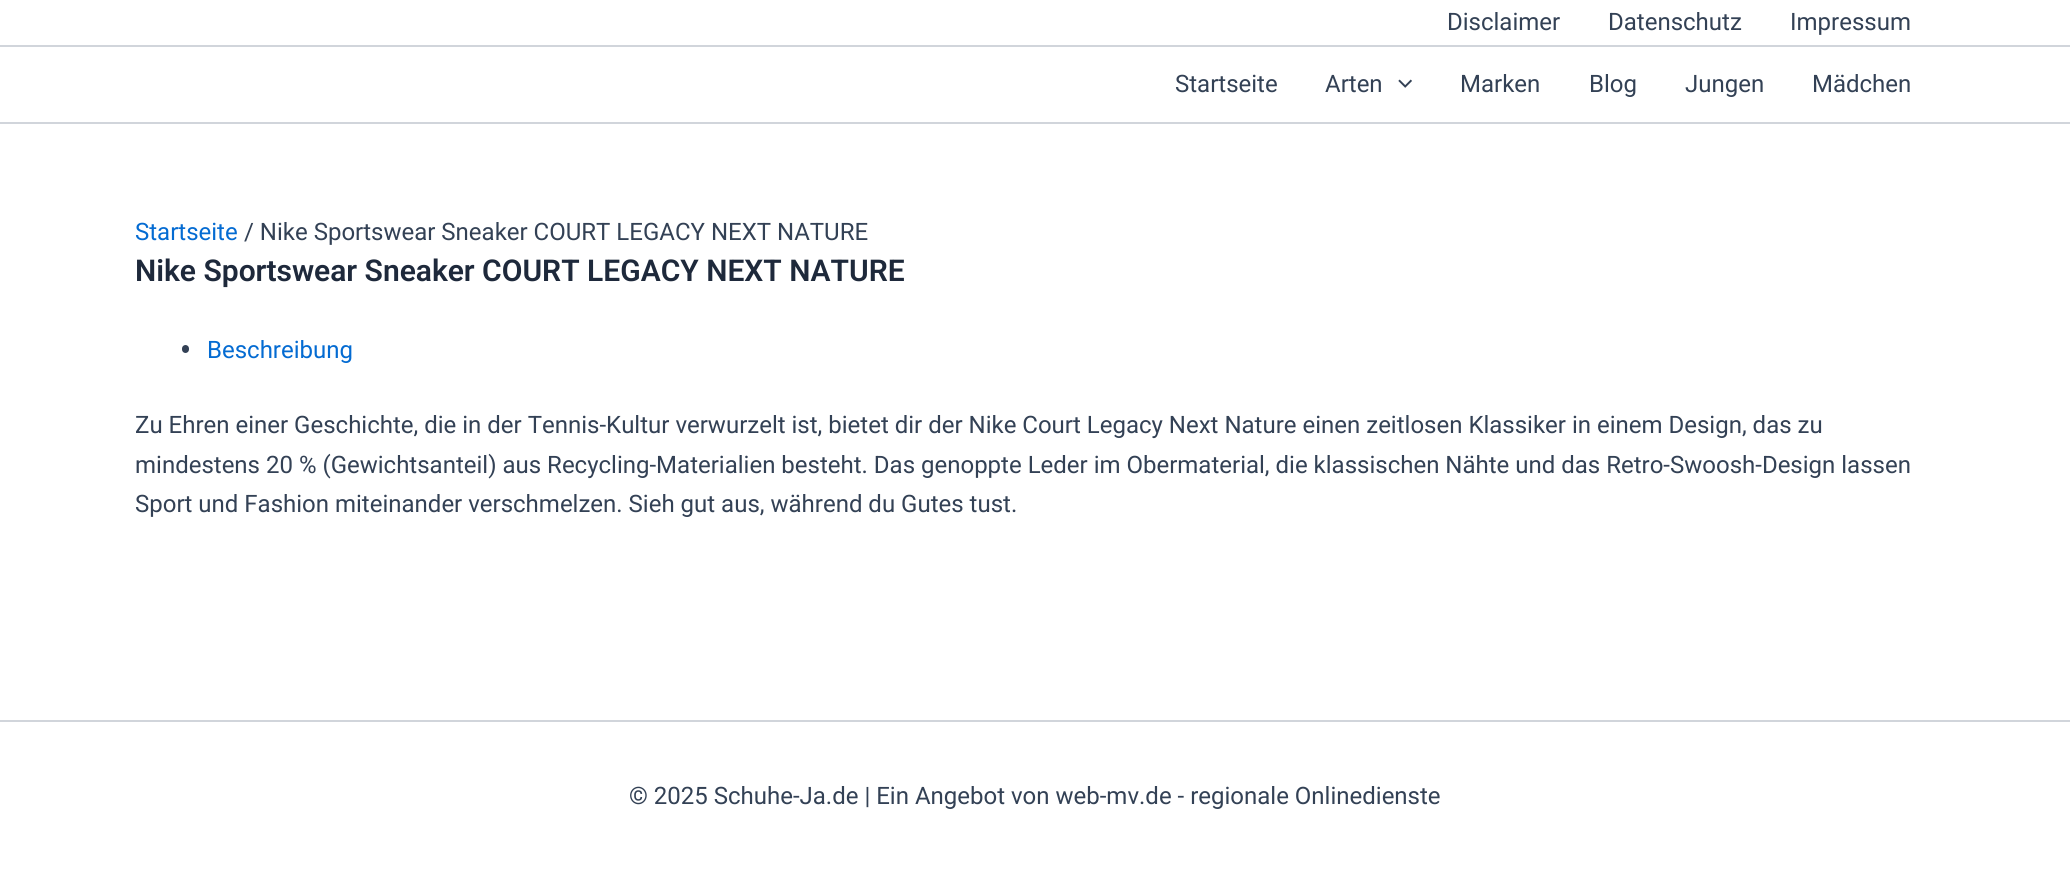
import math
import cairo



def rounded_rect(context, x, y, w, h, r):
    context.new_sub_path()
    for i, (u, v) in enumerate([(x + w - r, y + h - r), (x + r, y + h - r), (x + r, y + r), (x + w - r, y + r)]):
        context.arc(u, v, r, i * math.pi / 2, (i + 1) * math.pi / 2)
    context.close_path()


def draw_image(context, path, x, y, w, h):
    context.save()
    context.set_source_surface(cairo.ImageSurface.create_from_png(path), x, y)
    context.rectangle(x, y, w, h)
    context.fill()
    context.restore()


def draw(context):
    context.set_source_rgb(1, 1, 1)
    context.paint()
    context.set_source_rgb(209 / 255, 213 / 255, 219 / 255)
    context.rectangle(0, 45, 2070, 2)
    context.fill()
    context.rectangle(0, 122, 2070, 2)
    context.fill()
    draw_image(context, "images/1.png", 1398, 79, 14, 9)
    context.set_source_rgb(51 / 255, 65 / 255, 85 / 255)
    rounded_rect(context, 182, 345, 7, 8, 3.5)
    context.fill()
    context.set_source_rgb(209 / 255, 213 / 255, 219 / 255)
    context.rectangle(0, 720, 2070, 2)
    context.fill()
    context.select_font_face("Roboto")
    context.set_font_size(24)
    context.set_source_rgb(51 / 255, 65 / 255, 85 / 255)
    context.move_to(1447, 30)
    context.show_text("Disclaimer")
    context.move_to(1608, 30)
    context.show_text("Datenschutz")
    context.move_to(1790, 30)
    context.show_text("Impressum")
    context.move_to(1175, 92)
    context.show_text("Startseite")
    context.move_to(1325, 92)
    context.show_text("Arten")
    context.move_to(1460, 92)
    context.show_text("Marken")
    context.move_to(1589, 92)
    context.show_text("Blog")
    context.move_to(1685, 92)
    context.show_text("Jungen")
    context.move_to(1812, 92)
    context.show_text("Mädchen")
    context.set_source_rgb(4 / 255, 107 / 255, 210 / 255)
    context.move_to(135, 240)
    context.show_text("Startseite")
    context.set_source_rgb(51 / 255, 65 / 255, 85 / 255)
    context.move_to(244, 240)
    context.show_text("/ Nike Sportswear Sneaker COURT LEGACY NEXT NATURE")
    context.select_font_face("Roboto SemiBold")
    context.set_font_size(30)
    context.set_source_rgb(30 / 255, 41 / 255, 59 / 255)
    context.move_to(135, 281)
    context.show_text("Nike Sportswear Sneaker COURT LEGACY NEXT NATURE")
    context.select_font_face("Roboto")
    context.set_font_size(24)
    context.set_source_rgb(4 / 255, 107 / 255, 210 / 255)
    context.move_to(207, 358)
    context.show_text("Beschreibung")
    context.set_source_rgb(51 / 255, 65 / 255, 85 / 255)
    context.move_to(135, 433)
    context.show_text("Zu Ehren einer Geschichte, die in der Tennis-Kultur verwurzelt ist, bietet dir der Nike Court Legacy Next Nature einen zeitlosen Klassiker in einem Design, das zu")
    context.move_to(135, 473)
    context.show_text("mindestens 20 % (Gewichtsanteil) aus Recycling-Materialien besteht. Das genoppte Leder im Obermaterial, die klassischen Nähte und das Retro-Swoosh-Design lassen")
    context.move_to(135, 512)
    context.show_text("Sport und Fashion miteinander verschmelzen. Sieh gut aus, während du Gutes tust.")
    context.move_to(629, 804)
    context.show_text("© 2025 Schuhe-Ja.de | Ein Angebot von web-mv.de - regionale Onlinedienste")


surface = cairo.ImageSurface(cairo.Format.RGB24, 2070, 871)
context = cairo.Context(surface)
options = cairo.FontOptions()
options.set_hint_metrics(cairo.HintMetrics.OFF)
options.set_hint_style(cairo.HintStyle.NONE)
context.set_font_options(options)
context.set_miter_limit(4)
draw(context)
surface.write_to_png("out.png")
